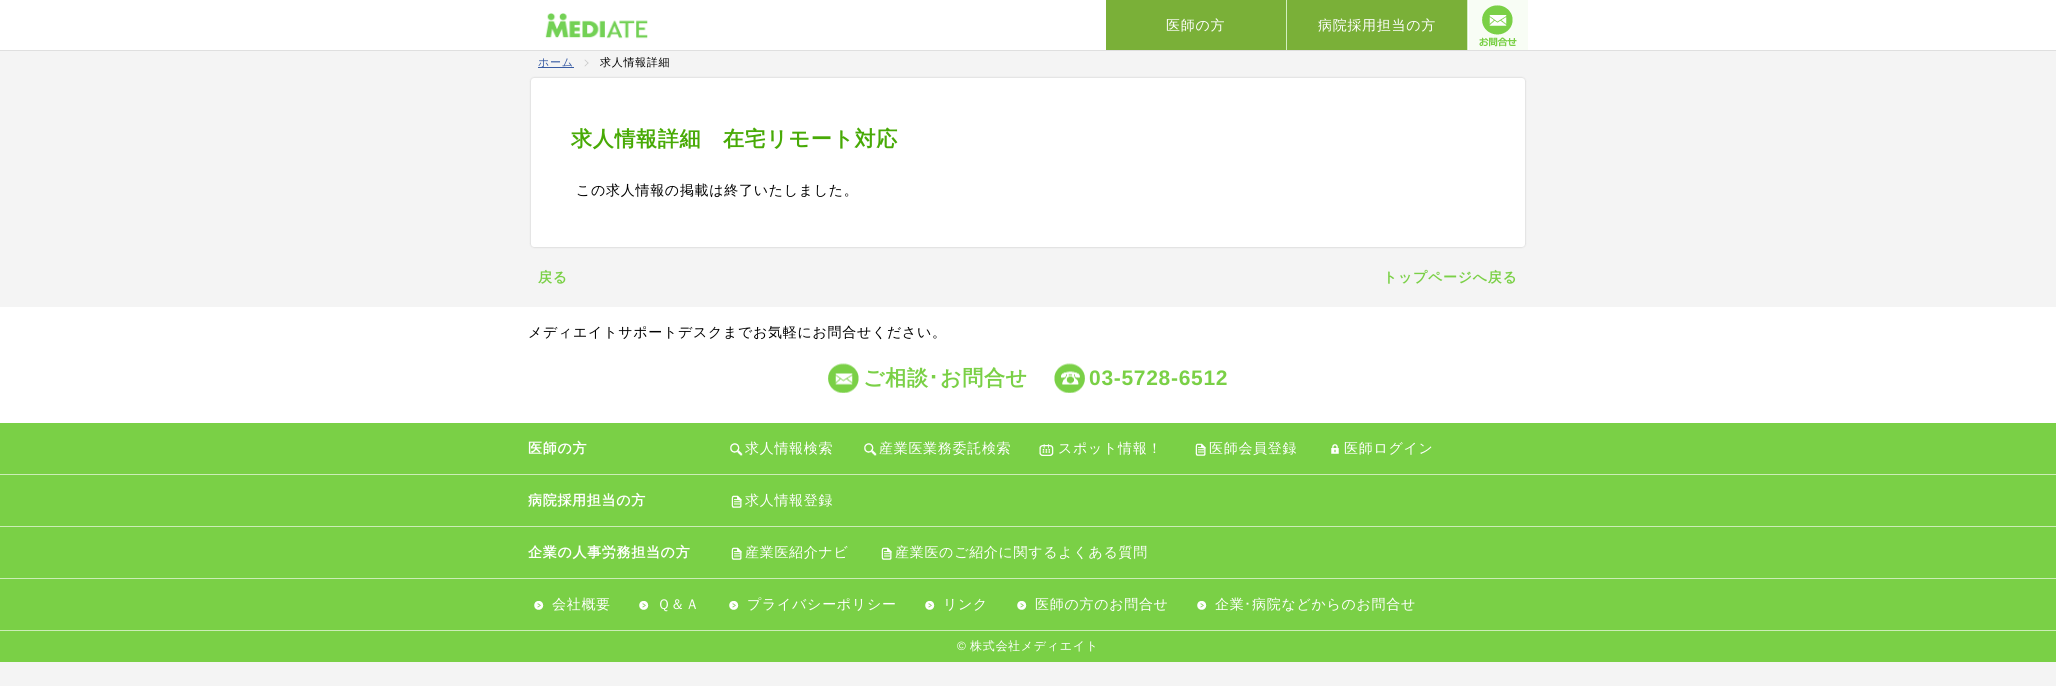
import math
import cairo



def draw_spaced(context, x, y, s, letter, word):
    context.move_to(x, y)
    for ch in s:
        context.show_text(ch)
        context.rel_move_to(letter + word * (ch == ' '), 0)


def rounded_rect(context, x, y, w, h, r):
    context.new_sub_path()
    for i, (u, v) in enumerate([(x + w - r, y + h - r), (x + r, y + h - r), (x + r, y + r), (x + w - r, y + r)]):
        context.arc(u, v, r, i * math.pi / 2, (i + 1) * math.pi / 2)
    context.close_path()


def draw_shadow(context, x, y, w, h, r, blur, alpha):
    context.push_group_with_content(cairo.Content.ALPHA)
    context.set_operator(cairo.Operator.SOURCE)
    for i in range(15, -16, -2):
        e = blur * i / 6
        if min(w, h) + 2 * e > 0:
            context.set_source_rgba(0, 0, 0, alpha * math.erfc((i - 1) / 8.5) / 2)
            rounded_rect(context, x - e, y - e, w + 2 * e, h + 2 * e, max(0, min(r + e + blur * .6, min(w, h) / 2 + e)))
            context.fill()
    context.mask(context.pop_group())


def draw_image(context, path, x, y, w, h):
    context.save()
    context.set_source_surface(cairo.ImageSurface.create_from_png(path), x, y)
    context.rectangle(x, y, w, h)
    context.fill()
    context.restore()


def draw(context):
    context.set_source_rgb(244 / 255, 244 / 255, 244 / 255)
    context.paint()
    context.set_source_rgb(1, 1, 1)
    context.rectangle(0, 0, 2056, 50)
    context.fill()
    draw_image(context, "images/1.png", 545, 13, 103, 26)
    draw_image(context, "images/2.png", 1469, 0, 59, 50)
    context.set_source_rgb(211 / 255, 239 / 255, 193 / 255)
    context.rectangle(1286, 0, 1, 50)
    context.fill()
    context.set_source_rgb(122 / 255, 176 / 255, 56 / 255)
    context.rectangle(1106, 0, 180, 50)
    context.fill()
    context.set_source_rgb(211 / 255, 239 / 255, 193 / 255)
    context.rectangle(1467, 0, 1, 50)
    context.fill()
    context.set_source_rgb(122 / 255, 176 / 255, 56 / 255)
    context.rectangle(1287, 0, 180, 50)
    context.fill()
    context.set_source_rgb(223 / 255, 223 / 255, 223 / 255)
    context.rectangle(0, 50, 2056, 1)
    context.fill()
    context.set_source_rgb(57 / 255, 92 / 255, 164 / 255)
    context.rectangle(538, 67, 36, 1)
    context.fill()
    context.set_source_rgb(198 / 255, 198 / 255, 198 / 255)
    context.new_path()
    context.move_to(585, 59.5)
    context.line_to(588.5, 63)
    context.line_to(588, 63.5)
    context.line_to(584.5, 60)
    context.close_path()
    context.fill()
    context.new_path()
    context.move_to(588, 62.5)
    context.line_to(588.5, 63)
    context.line_to(585, 66.5)
    context.line_to(584.5, 66)
    context.close_path()
    context.fill()
    context.set_source_rgb(0, 0, 0)
    draw_shadow(context, 531, 78, 994, 169, 3, 1, 0.2)
    context.set_source_rgb(1, 1, 1)
    rounded_rect(context, 531, 78, 994, 169, 3)
    context.fill()
    context.rectangle(0, 307, 2056, 116)
    context.fill()
    draw_image(context, "images/3.png", 828, 363, 31, 30)
    draw_image(context, "images/4.png", 1054, 363, 31, 30)
    context.set_source_rgb(122 / 255, 208 / 255, 70 / 255)
    context.rectangle(0, 423, 2056, 239)
    context.fill()
    context.set_source_rgb(203 / 255, 237 / 255, 182 / 255)
    context.rectangle(0, 474, 2056, 1)
    context.fill()
    draw_image(context, "images/5.png", 730, 443, 13, 13)
    draw_image(context, "images/5.png", 864, 443, 13, 13)
    draw_image(context, "images/6.png", 1039, 444, 15, 12)
    draw_image(context, "images/7.png", 1195, 443, 11, 13)
    draw_image(context, "images/8.png", 1331, 444, 8, 10)
    context.rectangle(0, 526, 2056, 1)
    context.fill()
    draw_image(context, "images/7.png", 731, 495, 11, 13)
    context.rectangle(0, 578, 2056, 1)
    context.fill()
    draw_image(context, "images/7.png", 731, 547, 11, 13)
    draw_image(context, "images/7.png", 881, 547, 11, 13)
    context.rectangle(0, 630, 2056, 1)
    context.fill()
    draw_image(context, "images/9.png", 534, 601, 10, 9)
    draw_image(context, "images/9.png", 639, 601, 10, 9)
    draw_image(context, "images/9.png", 729, 601, 10, 9)
    draw_image(context, "images/9.png", 925, 601, 10, 9)
    draw_image(context, "images/9.png", 1017, 601, 10, 9)
    draw_image(context, "images/9.png", 1197, 601, 10, 9)
    context.select_font_face("WenQuanYi Zen Hei Medium")
    context.set_font_size(14)
    context.set_source_rgb(1, 1, 1)
    draw_spaced(context, 1166, 30, "医師の方", 0.7, 0)
    draw_spaced(context, 1318, 30, "病院採用担当の方", 0.7, 0)
    context.set_font_size(11)
    context.set_source_rgb(57 / 255, 92 / 255, 164 / 255)
    draw_spaced(context, 538, 66, "ホーム", 0.7, 0)
    context.set_source_rgb(0, 0, 0)
    draw_spaced(context, 600, 66, "求人情報詳細", 0.7, 0)
    context.select_font_face("WenQuanYi Zen Hei", cairo.FontSlant.NORMAL, cairo.FontWeight.BOLD)
    context.set_font_size(21)
    context.set_source_rgb(72 / 255, 170 / 255, 6 / 255)
    draw_spaced(context, 571, 146, "求人情報詳細　在宅リモート対応", 0.7, 0)
    context.select_font_face("WenQuanYi Zen Hei Medium")
    context.set_font_size(14)
    context.set_source_rgb(0, 0, 0)
    draw_spaced(context, 576, 195, "この求人情報の掲載は終了いたしました。", 0.7, 0)
    context.select_font_face("WenQuanYi Zen Hei", cairo.FontSlant.NORMAL, cairo.FontWeight.BOLD)
    context.set_source_rgb(122 / 255, 208 / 255, 70 / 255)
    draw_spaced(context, 538, 282, "戻る", 0.7, 0)
    draw_spaced(context, 1383, 282, "トップページへ戻る", 0.7, 0)
    context.select_font_face("WenQuanYi Zen Hei Medium")
    context.set_source_rgb(0, 0, 0)
    draw_spaced(context, 528, 337, "メディエイトサポートデスクまでお気軽にお問合せください。", 0.7, 0)
    context.select_font_face("WenQuanYi Zen Hei", cairo.FontSlant.NORMAL, cairo.FontWeight.BOLD)
    context.set_font_size(21)
    context.set_source_rgb(122 / 255, 208 / 255, 70 / 255)
    draw_spaced(context, 863, 385, "ご相談", 0.7, 0)
    context.select_font_face("IPAPGothic", cairo.FontSlant.NORMAL, cairo.FontWeight.BOLD)
    draw_spaced(context, 928, 385, "･", 0.7, 0)
    context.select_font_face("WenQuanYi Zen Hei", cairo.FontSlant.NORMAL, cairo.FontWeight.BOLD)
    draw_spaced(context, 940, 385, "お問合せ", 0.7, 0)
    context.select_font_face("Liberation Sans", cairo.FontSlant.NORMAL, cairo.FontWeight.BOLD)
    draw_spaced(context, 1089, 385, "03-5728-6512", 0.7, 0)
    context.select_font_face("WenQuanYi Zen Hei", cairo.FontSlant.NORMAL, cairo.FontWeight.BOLD)
    context.set_font_size(14)
    context.set_source_rgb(1, 1, 1)
    draw_spaced(context, 528, 453, "医師の方", 0.7, 0)
    context.select_font_face("WenQuanYi Zen Hei Medium")
    draw_spaced(context, 745, 453, "求人情報検索", 0.7, 0)
    draw_spaced(context, 879, 453, "産業医業務委託検索", 0.7, 0)
    draw_spaced(context, 1058, 453, "スポット情報！", 0.7, 0)
    draw_spaced(context, 1209, 453, "医師会員登録", 0.7, 0)
    draw_spaced(context, 1344, 453, "医師ログイン", 0.7, 0)
    context.select_font_face("WenQuanYi Zen Hei", cairo.FontSlant.NORMAL, cairo.FontWeight.BOLD)
    draw_spaced(context, 528, 505, "病院採用担当の方", 0.7, 0)
    context.select_font_face("WenQuanYi Zen Hei Medium")
    draw_spaced(context, 745, 505, "求人情報登録", 0.7, 0)
    context.select_font_face("WenQuanYi Zen Hei", cairo.FontSlant.NORMAL, cairo.FontWeight.BOLD)
    draw_spaced(context, 528, 557, "企業の人事労務担当の方", 0.7, 0)
    context.select_font_face("WenQuanYi Zen Hei Medium")
    draw_spaced(context, 745, 557, "産業医紹介ナビ", 0.7, 0)
    draw_spaced(context, 895, 557, "産業医のご紹介に関するよくある質問", 0.7, 0)
    draw_spaced(context, 552, 609, "会社概要", 0.7, 0)
    draw_spaced(context, 657, 609, "Ｑ＆Ａ", 0.7, 0)
    draw_spaced(context, 747, 609, "プライバシーポリシー", 0.7, 0)
    draw_spaced(context, 943, 609, "リンク", 0.7, 0)
    draw_spaced(context, 1035, 609, "医師の方のお問合せ", 0.7, 0)
    draw_spaced(context, 1215, 609, "企業", 0.7, 0)
    context.select_font_face("IPAPGothic")
    draw_spaced(context, 1244, 609, "･", 0.7, 0)
    context.select_font_face("WenQuanYi Zen Hei Medium")
    draw_spaced(context, 1252, 609, "病院などからのお問合せ", 0.7, 0)
    context.select_font_face("Liberation Sans")
    context.set_font_size(12)
    draw_spaced(context, 957, 650, "©", 0.7, 0)
    context.select_font_face("WenQuanYi Zen Hei Medium")
    draw_spaced(context, 970, 650, "株式会社メディエイト", 0.7, 0)


surface = cairo.ImageSurface(cairo.Format.RGB24, 2056, 686)
context = cairo.Context(surface)
options = cairo.FontOptions()
options.set_hint_metrics(cairo.HintMetrics.OFF)
options.set_hint_style(cairo.HintStyle.NONE)
context.set_font_options(options)
context.set_miter_limit(4)
draw(context)
surface.write_to_png("out.png")
